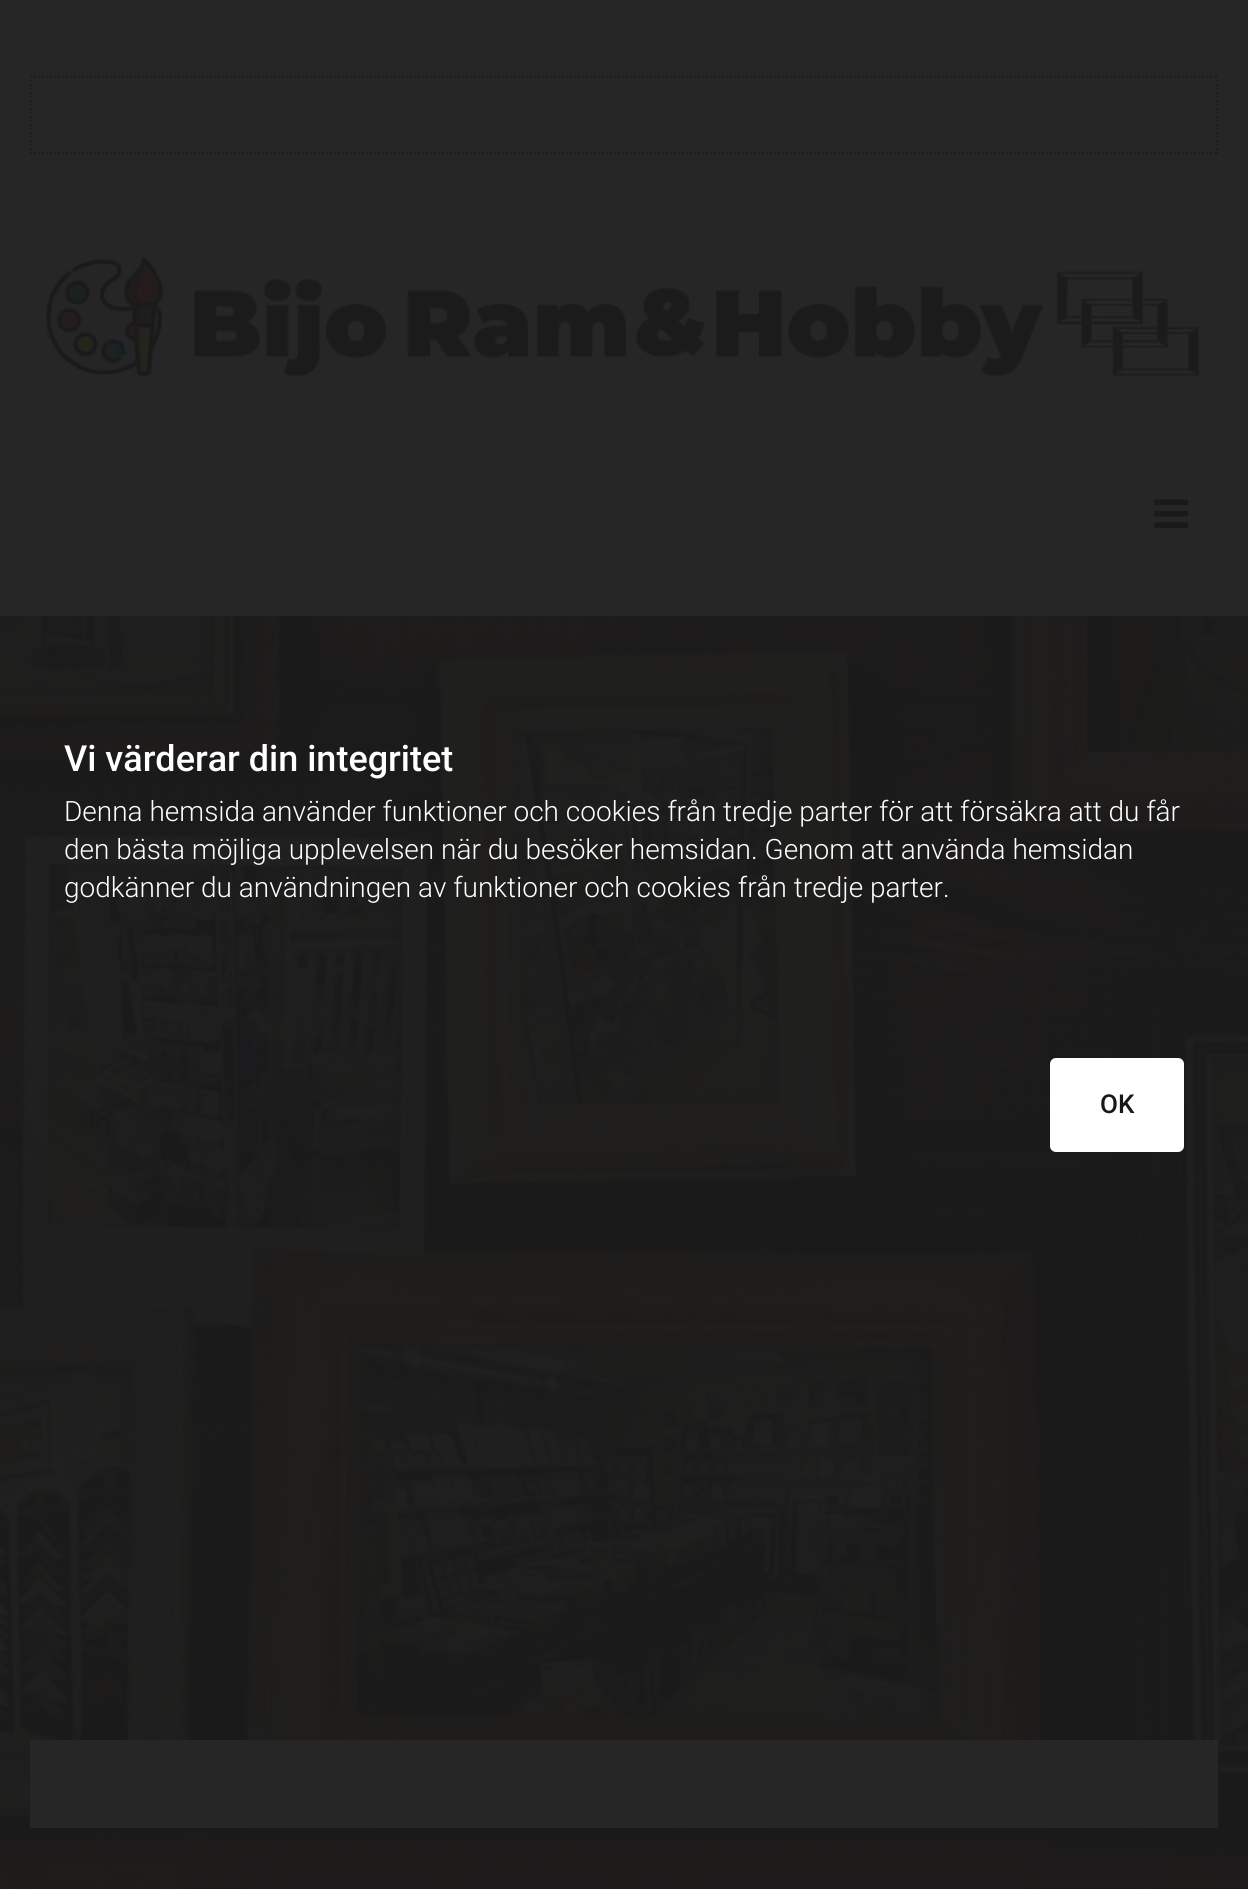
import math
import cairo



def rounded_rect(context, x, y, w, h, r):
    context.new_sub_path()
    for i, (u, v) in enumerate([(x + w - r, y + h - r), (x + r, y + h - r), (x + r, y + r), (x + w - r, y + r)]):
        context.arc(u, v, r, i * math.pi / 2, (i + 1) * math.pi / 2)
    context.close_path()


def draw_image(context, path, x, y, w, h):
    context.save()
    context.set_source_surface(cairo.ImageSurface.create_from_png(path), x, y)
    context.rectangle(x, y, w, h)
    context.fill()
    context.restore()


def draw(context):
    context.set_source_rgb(38 / 255, 38 / 255, 38 / 255)
    context.paint()
    context.new_path()
    context.move_to(30, 77)
    context.line_to(1218, 77)
    context.set_source_rgb(30 / 255, 30 / 255, 30 / 255)
    context.set_dash([2, 2])
    context.stroke()
    context.new_path()
    context.move_to(1217, 76)
    context.line_to(1217, 154)
    context.stroke()
    context.new_path()
    context.move_to(30, 153)
    context.line_to(1218, 153)
    context.stroke()
    context.new_path()
    context.move_to(31, 76)
    context.line_to(31, 154)
    context.stroke()
    draw_image(context, "images/1.png", 30, 254, 1174, 140)
    draw_image(context, "images/2.png", 1154, 499, 35, 29)
    draw_image(context, "images/3.png", 0, 616, 1248, 1273)
    context.set_source_rgb(38 / 255, 38 / 255, 38 / 255)
    context.rectangle(30, 1740, 1188, 88)
    context.fill()
    context.set_source_rgb(1, 1, 1)
    rounded_rect(context, 1051, 1059, 132, 92, 5)
    context.fill_preserve()
    context.set_dash([])
    context.stroke()
    context.select_font_face("Roboto Medium")
    context.set_font_size(36)
    context.move_to(64, 771)
    context.show_text("Vi värderar din integritet")
    context.select_font_face("Roboto Light")
    context.set_font_size(28)
    context.move_to(64, 821)
    context.show_text("Denna hemsida använder funktioner och cookies från tredje parter för att försäkra att du får")
    context.move_to(64, 859)
    context.show_text("den bästa möjliga upplevelsen när du besöker hemsidan. Genom att använda hemsidan")
    context.move_to(64, 897)
    context.show_text("godkänner du användningen av funktioner och cookies från tredje parter.")
    context.select_font_face("Roboto Medium")
    context.set_font_size(26)
    context.set_source_rgb(24 / 255, 24 / 255, 24 / 255)
    context.move_to(1100, 1113)
    context.show_text("OK")


surface = cairo.ImageSurface(cairo.Format.RGB24, 1248, 1889)
context = cairo.Context(surface)
options = cairo.FontOptions()
options.set_hint_metrics(cairo.HintMetrics.OFF)
options.set_hint_style(cairo.HintStyle.NONE)
context.set_font_options(options)
context.set_miter_limit(4)
draw(context)
surface.write_to_png("out.png")
